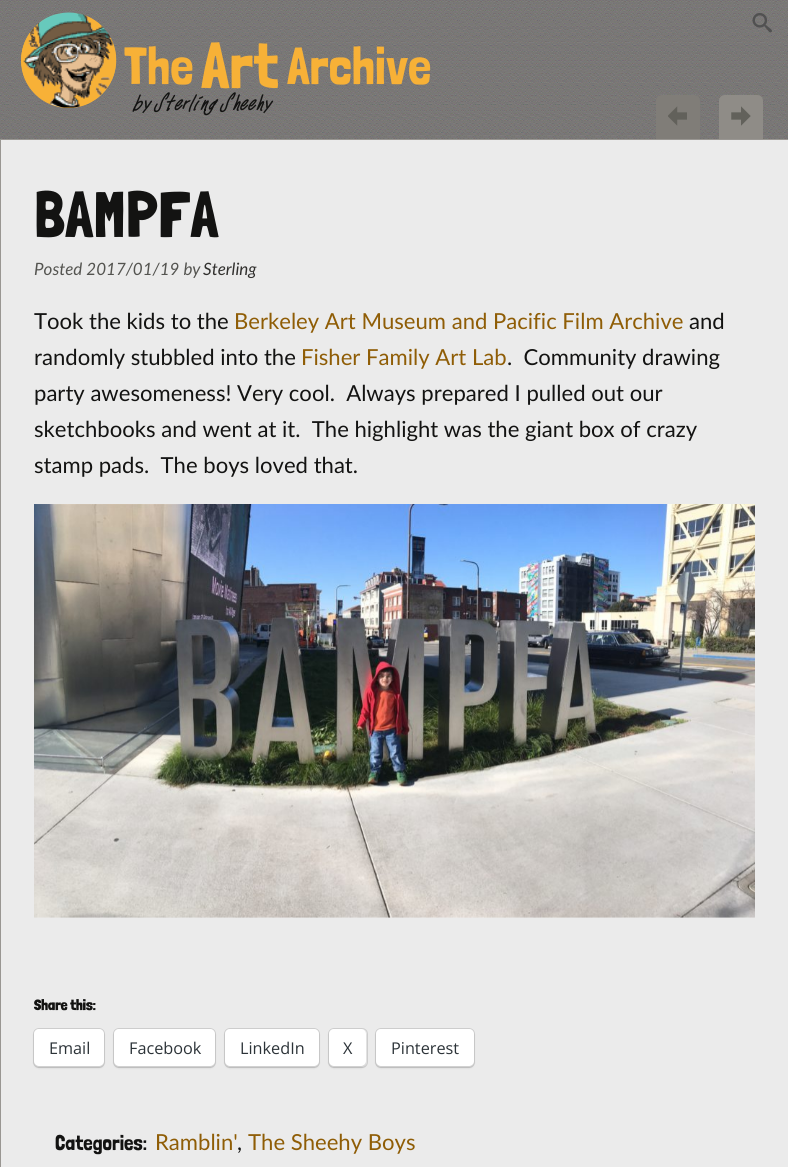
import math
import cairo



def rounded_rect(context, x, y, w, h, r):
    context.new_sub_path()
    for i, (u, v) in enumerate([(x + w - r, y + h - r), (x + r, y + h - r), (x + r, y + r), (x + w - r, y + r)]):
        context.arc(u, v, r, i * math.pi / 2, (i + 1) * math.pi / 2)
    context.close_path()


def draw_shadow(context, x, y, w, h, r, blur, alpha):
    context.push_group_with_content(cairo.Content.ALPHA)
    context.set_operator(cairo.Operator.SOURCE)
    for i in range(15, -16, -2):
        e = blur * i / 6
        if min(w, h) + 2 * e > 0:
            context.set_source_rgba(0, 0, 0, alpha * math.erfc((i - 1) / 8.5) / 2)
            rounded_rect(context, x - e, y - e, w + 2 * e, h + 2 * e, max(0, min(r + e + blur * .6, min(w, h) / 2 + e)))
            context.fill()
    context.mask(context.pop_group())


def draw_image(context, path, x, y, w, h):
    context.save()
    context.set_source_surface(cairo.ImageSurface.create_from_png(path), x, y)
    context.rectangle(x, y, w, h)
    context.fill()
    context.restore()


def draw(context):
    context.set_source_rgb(1, 1, 1)
    context.paint()
    draw_image(context, "images/1.png", 0, 0, 788, 139)
    draw_image(context, "images/2.png", 752, 13, 20, 20)
    context.set_source_rgb(247 / 255, 177 / 255, 55 / 255)
    context.arc(68.5, 60.5, 47.5, 0, 2 * math.pi)
    context.fill()
    draw_image(context, "images/3.png", 21, 12, 96, 96)
    context.set_source_rgb(128 / 255, 125 / 255, 120 / 255)
    context.new_path()
    context.move_to(662, 95)
    context.line_to(694, 95)
    context.curve_to(697.5, 95, 700, 97.5, 700, 101)
    context.line_to(700, 139)
    context.line_to(656, 139)
    context.line_to(656, 101)
    context.curve_to(656, 97.5, 658.5, 95, 662, 95)
    context.close_path()
    context.fill()
    draw_image(context, "images/4.png", 668, 106, 19, 20)
    context.set_source_rgb(143 / 255, 140 / 255, 135 / 255)
    context.new_path()
    context.move_to(725, 95)
    context.line_to(757, 95)
    context.curve_to(760.5, 95, 763, 97.5, 763, 101)
    context.line_to(763, 139)
    context.line_to(719, 139)
    context.line_to(719, 101)
    context.curve_to(719, 97.5, 721.5, 95, 725, 95)
    context.close_path()
    context.fill()
    draw_image(context, "images/5.png", 731, 106, 20, 20)
    context.set_source_rgb(235 / 255, 235 / 255, 235 / 255)
    context.rectangle(0.5, 139.5, 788, 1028)
    context.fill_preserve()
    context.set_source_rgb(153 / 255, 150 / 255, 146 / 255)
    context.set_line_width(1)
    context.stroke()
    draw_image(context, "images/6.png", 34, 504, 721, 414)
    rounded_rect(context, 33.5, 1028.5, 71, 39, 5.5)
    context.set_source_rgb(207 / 255, 207 / 255, 207 / 255)
    context.stroke()
    context.set_source_rgb(0, 0, 0)
    draw_shadow(context, 34, 1030, 70, 38, 5, 1, 0.12)
    context.set_source_rgb(1, 1, 1)
    rounded_rect(context, 34, 1029, 70, 37, 5)
    context.fill()
    rounded_rect(context, 113.5, 1028.5, 102, 39, 5.5)
    context.set_source_rgb(207 / 255, 207 / 255, 207 / 255)
    context.stroke()
    context.set_source_rgb(0, 0, 0)
    draw_shadow(context, 114, 1030, 101, 38, 5, 1, 0.12)
    context.set_source_rgb(1, 1, 1)
    rounded_rect(context, 114, 1029, 101, 37, 5)
    context.fill()
    rounded_rect(context, 224.5, 1028.5, 95, 39, 5.5)
    context.set_source_rgb(207 / 255, 207 / 255, 207 / 255)
    context.stroke()
    context.set_source_rgb(0, 0, 0)
    draw_shadow(context, 225, 1030, 94, 38, 5, 1, 0.12)
    context.set_source_rgb(1, 1, 1)
    rounded_rect(context, 225, 1029, 94, 37, 5)
    context.fill()
    rounded_rect(context, 328.5, 1028.5, 39, 39, 5.5)
    context.set_source_rgb(207 / 255, 207 / 255, 207 / 255)
    context.stroke()
    context.set_source_rgb(0, 0, 0)
    draw_shadow(context, 329, 1030, 37, 38, 5, 1, 0.12)
    context.set_source_rgb(1, 1, 1)
    rounded_rect(context, 329, 1029, 37, 37, 5)
    context.fill()
    rounded_rect(context, 375.5, 1028.5, 99, 39, 5.5)
    context.set_source_rgb(207 / 255, 207 / 255, 207 / 255)
    context.stroke()
    context.set_source_rgb(0, 0, 0)
    draw_shadow(context, 376, 1030, 98, 38, 5, 1, 0.12)
    context.set_source_rgb(1, 1, 1)
    rounded_rect(context, 376, 1029, 98, 37, 5)
    context.fill()
    context.select_font_face("Londrina Solid")
    context.set_font_size(52)
    context.set_source_rgb(247 / 255, 177 / 255, 55 / 255)
    context.move_to(124, 84)
    context.show_text("The")
    context.set_font_size(65)
    context.move_to(201, 88)
    context.show_text("Art")
    context.set_font_size(52)
    context.move_to(287, 84)
    context.show_text("Archive")
    context.select_font_face("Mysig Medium", cairo.FontSlant.ITALIC)
    context.set_font_size(21)
    context.set_source_rgb(19 / 255, 19 / 255, 18 / 255)
    context.move_to(134, 110)
    context.show_text("by")
    context.move_to(156, 110)
    context.show_text("Sterling")
    context.move_to(222, 110)
    context.show_text("Sheehy")
    context.select_font_face("Londrina Solid")
    context.set_font_size(65)
    context.move_to(34, 237)
    context.show_text("BAMPFA")
    context.select_font_face("Lato", cairo.FontSlant.ITALIC)
    context.set_font_size(17)
    context.set_source_rgb(84 / 255, 84 / 255, 80 / 255)
    context.move_to(34, 275)
    context.show_text("Posted 2017/01/19 by")
    context.set_source_rgb(49 / 255, 48 / 255, 46 / 255)
    context.move_to(203, 275)
    context.show_text("Sterling")
    context.select_font_face("Lato")
    context.set_font_size(22.1)
    context.set_source_rgb(19 / 255, 19 / 255, 18 / 255)
    context.move_to(34, 329)
    context.show_text("Took the kids to the")
    context.set_source_rgb(143 / 255, 93 / 255, 6 / 255)
    context.move_to(234, 329)
    context.show_text("Berkeley Art Museum and Pacific Film Archive")
    context.set_source_rgb(19 / 255, 19 / 255, 18 / 255)
    context.move_to(689, 329)
    context.show_text("and")
    context.move_to(34, 365)
    context.show_text("randomly stubbled into the")
    context.set_source_rgb(143 / 255, 93 / 255, 6 / 255)
    context.move_to(301, 365)
    context.show_text("Fisher Family Art Lab")
    context.set_source_rgb(19 / 255, 19 / 255, 18 / 255)
    context.move_to(507, 365)
    context.show_text(".  Community drawing")
    context.move_to(34, 401)
    context.show_text("party awesomeness! Very cool.  Always prepared I pulled out our")
    context.move_to(34, 437)
    context.show_text("sketchbooks and went at it.  The highlight was the giant box of crazy")
    context.move_to(34, 473)
    context.show_text("stamp pads.  The boys loved that.")
    context.select_font_face("Londrina Solid Black")
    context.set_font_size(15)
    context.move_to(34, 1010)
    context.show_text("Share this:")
    context.select_font_face("Open Sans")
    context.set_font_size(16.25)
    context.set_source_rgb(44 / 255, 51 / 255, 56 / 255)
    context.move_to(49, 1054)
    context.show_text("Email")
    context.move_to(129, 1054)
    context.show_text("Facebook")
    context.move_to(240, 1054)
    context.show_text("LinkedIn")
    context.move_to(343, 1054)
    context.show_text("X")
    context.move_to(391, 1054)
    context.show_text("Pinterest")
    context.select_font_face("Londrina Solid")
    context.set_font_size(21)
    context.set_source_rgb(19 / 255, 19 / 255, 18 / 255)
    context.move_to(55, 1150)
    context.show_text("Categories:")
    context.select_font_face("Lato")
    context.set_font_size(22.1)
    context.set_source_rgb(143 / 255, 93 / 255, 6 / 255)
    context.move_to(155, 1150)
    context.show_text("Ramblin'")
    context.set_source_rgb(19 / 255, 19 / 255, 18 / 255)
    context.move_to(237, 1150)
    context.show_text(",")
    context.set_source_rgb(143 / 255, 93 / 255, 6 / 255)
    context.move_to(248, 1150)
    context.show_text("The Sheehy Boys")


surface = cairo.ImageSurface(cairo.Format.RGB24, 788, 1167)
context = cairo.Context(surface)
options = cairo.FontOptions()
options.set_hint_metrics(cairo.HintMetrics.OFF)
options.set_hint_style(cairo.HintStyle.NONE)
context.set_font_options(options)
context.set_miter_limit(4)
draw(context)
surface.write_to_png("out.png")
